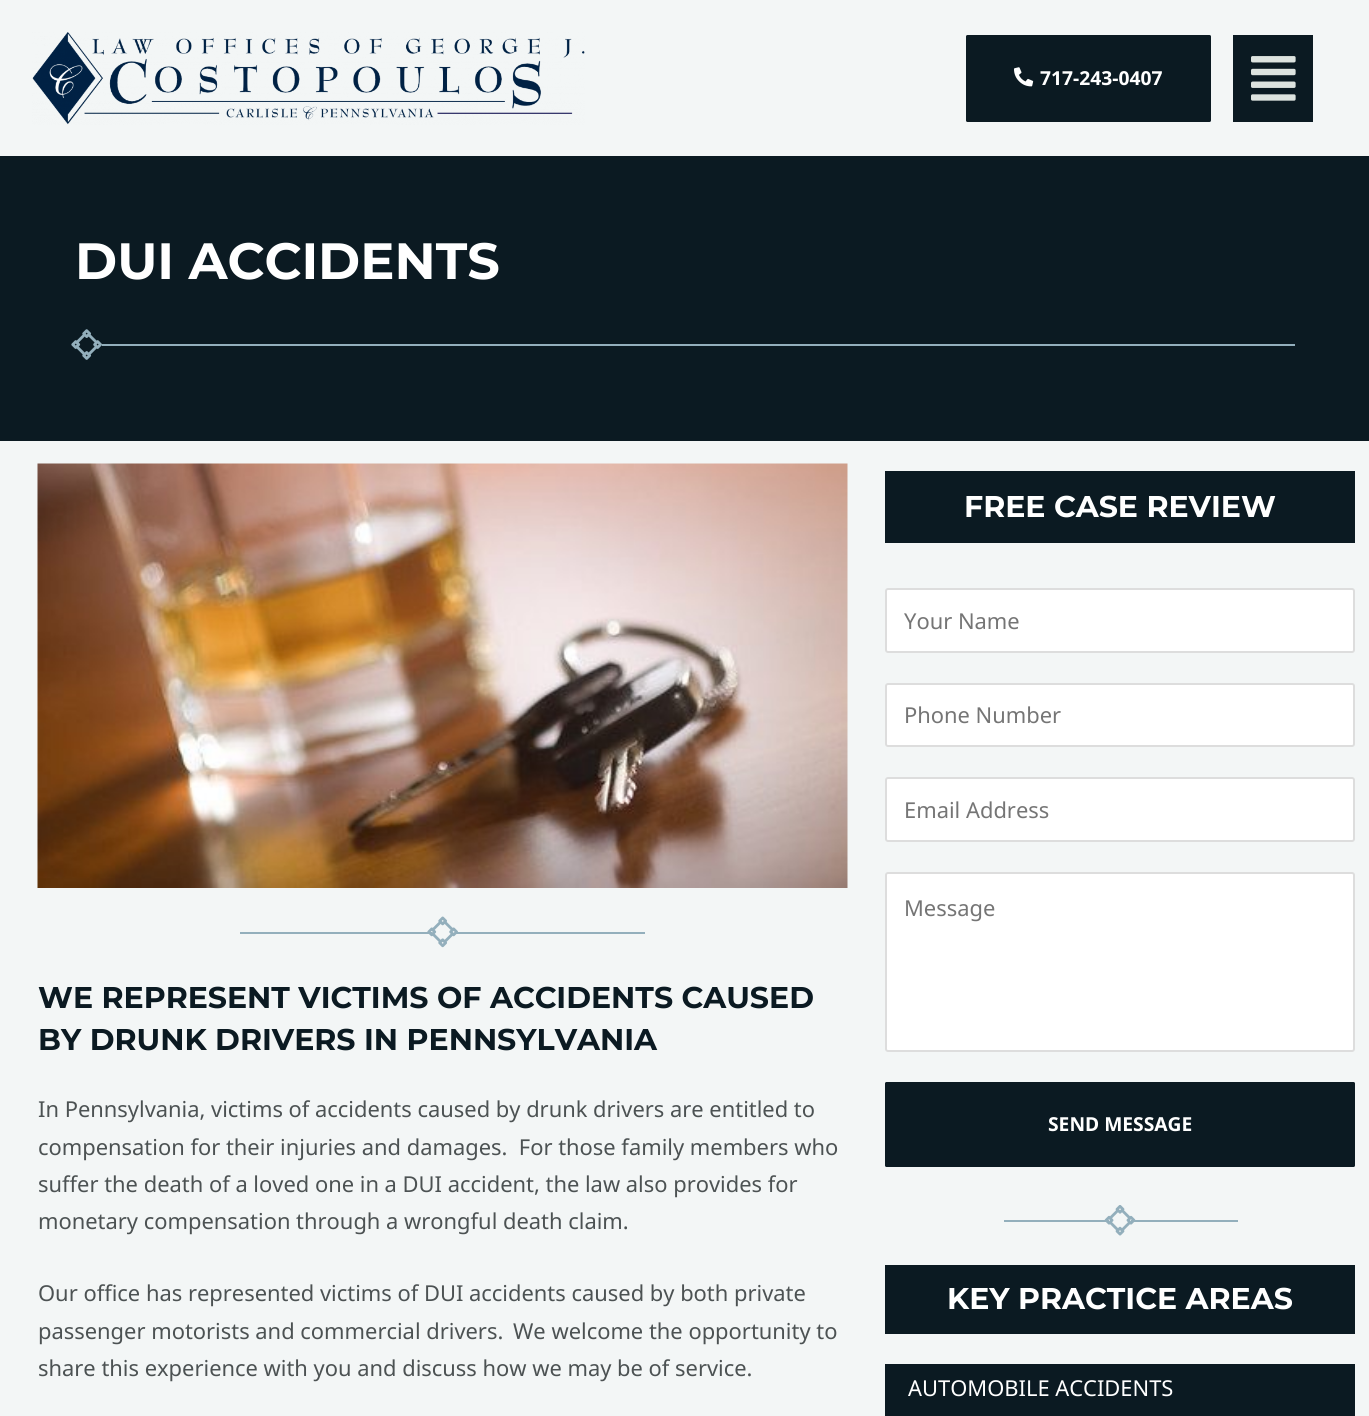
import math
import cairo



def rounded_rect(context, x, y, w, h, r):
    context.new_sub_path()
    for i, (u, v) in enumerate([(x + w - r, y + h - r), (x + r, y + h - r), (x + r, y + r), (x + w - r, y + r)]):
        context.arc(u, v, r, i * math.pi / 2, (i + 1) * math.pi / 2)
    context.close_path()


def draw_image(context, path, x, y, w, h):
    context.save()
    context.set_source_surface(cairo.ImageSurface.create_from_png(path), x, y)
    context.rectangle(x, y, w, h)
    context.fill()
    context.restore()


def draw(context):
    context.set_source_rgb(243 / 255, 246 / 255, 246 / 255)
    context.paint()
    draw_image(context, "images/1.png", 32, 32, 553, 93)
    context.set_source_rgb(11 / 255, 26 / 255, 34 / 255)
    rounded_rect(context, 966, 35, 245, 87, 1.5)
    context.fill()
    draw_image(context, "images/2.png", 1014, 67, 20, 20)
    context.rectangle(1233, 35, 80, 87)
    context.fill()
    draw_image(context, "images/3.png", 1251, 56, 45, 45)
    context.rectangle(0, 156, 1369, 285)
    context.fill()
    draw_image(context, "images/4.png", 71, 329, 31, 31)
    context.set_source_rgb(147 / 255, 175 / 255, 188 / 255)
    context.rectangle(102, 344, 1193, 2)
    context.fill()
    draw_image(context, "images/5.png", 37, 463, 811, 425)
    context.rectangle(240, 932, 192, 2)
    context.fill()
    context.rectangle(455, 932, 190, 2)
    context.fill()
    draw_image(context, "images/6.png", 427, 916, 31, 32)
    context.set_source_rgb(11 / 255, 26 / 255, 34 / 255)
    context.rectangle(885, 471, 470, 72)
    context.fill()
    context.set_source_rgb(1, 1, 1)
    rounded_rect(context, 886, 589, 468, 63, 2)
    context.fill_preserve()
    context.set_source_rgb(221 / 255, 221 / 255, 221 / 255)
    context.stroke()
    context.set_source_rgb(1, 1, 1)
    rounded_rect(context, 886, 684, 468, 62, 2)
    context.fill_preserve()
    context.set_source_rgb(221 / 255, 221 / 255, 221 / 255)
    context.stroke()
    context.set_source_rgb(1, 1, 1)
    rounded_rect(context, 886, 778, 468, 63, 2)
    context.fill_preserve()
    context.set_source_rgb(221 / 255, 221 / 255, 221 / 255)
    context.stroke()
    context.set_source_rgb(1, 1, 1)
    rounded_rect(context, 886, 873, 468, 178, 2)
    context.fill_preserve()
    context.set_source_rgb(221 / 255, 221 / 255, 221 / 255)
    context.stroke()
    context.set_source_rgb(11 / 255, 26 / 255, 34 / 255)
    rounded_rect(context, 885, 1082, 470, 85, 1.5)
    context.fill()
    context.set_source_rgb(147 / 255, 175 / 255, 188 / 255)
    context.rectangle(1004, 1220, 105, 2)
    context.fill()
    context.rectangle(1131, 1220, 107, 2)
    context.fill()
    draw_image(context, "images/7.png", 1104, 1205, 32, 31)
    context.set_source_rgb(11 / 255, 26 / 255, 34 / 255)
    context.rectangle(885, 1265, 470, 69)
    context.fill()
    context.rectangle(885, 1364, 470, 52)
    context.fill()
    context.select_font_face("Noto Sans", cairo.FontSlant.NORMAL, cairo.FontWeight.BOLD)
    context.set_font_size(19.25)
    context.set_source_rgb(1, 1, 1)
    context.move_to(1040, 85)
    context.show_text("717-243-0407")
    context.select_font_face("Montserrat Thin")
    context.set_font_size(51)
    context.move_to(75, 279)
    context.show_text("DUI ACCIDENTS")
    context.set_font_size(30)
    context.set_source_rgb(11 / 255, 26 / 255, 34 / 255)
    context.move_to(38, 1008)
    context.show_text("WE REPRESENT VICTIMS OF ACCIDENTS CAUSED")
    context.move_to(38, 1050)
    context.show_text("BY DRUNK DRIVERS IN PENNSYLVANIA")
    context.select_font_face("Noto Sans")
    context.set_font_size(21.9)
    context.set_source_rgb(76 / 255, 82 / 255, 83 / 255)
    context.move_to(38, 1117)
    context.show_text("In Pennsylvania, victims of accidents caused by drunk drivers are entitled to")
    context.move_to(38, 1155)
    context.show_text("compensation for their injuries and damages.  For those family members who")
    context.move_to(38, 1192)
    context.show_text("suffer the death of a loved one in a DUI accident, the law also provides for")
    context.move_to(38, 1229)
    context.show_text("monetary compensation through a wrongful death claim.")
    context.move_to(38, 1301)
    context.show_text("Our office has represented victims of DUI accidents caused by both private")
    context.move_to(38, 1339)
    context.show_text("passenger motorists and commercial drivers.")
    context.move_to(513, 1339)
    context.show_text("We welcome the opportunity to")
    context.move_to(38, 1376)
    context.show_text("share this experience with you and discuss how we may be of service.")
    context.select_font_face("Montserrat Thin")
    context.set_font_size(30)
    context.set_source_rgb(1, 1, 1)
    context.move_to(964, 517)
    context.show_text("FREE CASE REVIEW")
    context.select_font_face("Noto Sans")
    context.set_font_size(21.9)
    context.set_source_rgb(117 / 255, 117 / 255, 117 / 255)
    context.move_to(904, 629)
    context.show_text("Your Name")
    context.move_to(904, 723)
    context.show_text("Phone Number")
    context.move_to(904, 818)
    context.show_text("Email Address")
    context.move_to(904, 916)
    context.show_text("Message")
    context.select_font_face("Noto Sans", cairo.FontSlant.NORMAL, cairo.FontWeight.BOLD)
    context.set_font_size(19.25)
    context.set_source_rgb(1, 1, 1)
    context.move_to(1048, 1131)
    context.show_text("SEND MESSAGE")
    context.select_font_face("Montserrat Thin")
    context.set_font_size(30)
    context.move_to(947, 1309)
    context.show_text("KEY PRACTICE AREAS")
    context.select_font_face("Noto Sans")
    context.set_font_size(21.9)
    context.move_to(908, 1396)
    context.show_text("AUTOMOBILE ACCIDENTS")


surface = cairo.ImageSurface(cairo.Format.RGB24, 1369, 1416)
context = cairo.Context(surface)
options = cairo.FontOptions()
options.set_hint_metrics(cairo.HintMetrics.OFF)
options.set_hint_style(cairo.HintStyle.NONE)
context.set_font_options(options)
context.set_miter_limit(4)
draw(context)
surface.write_to_png("out.png")
